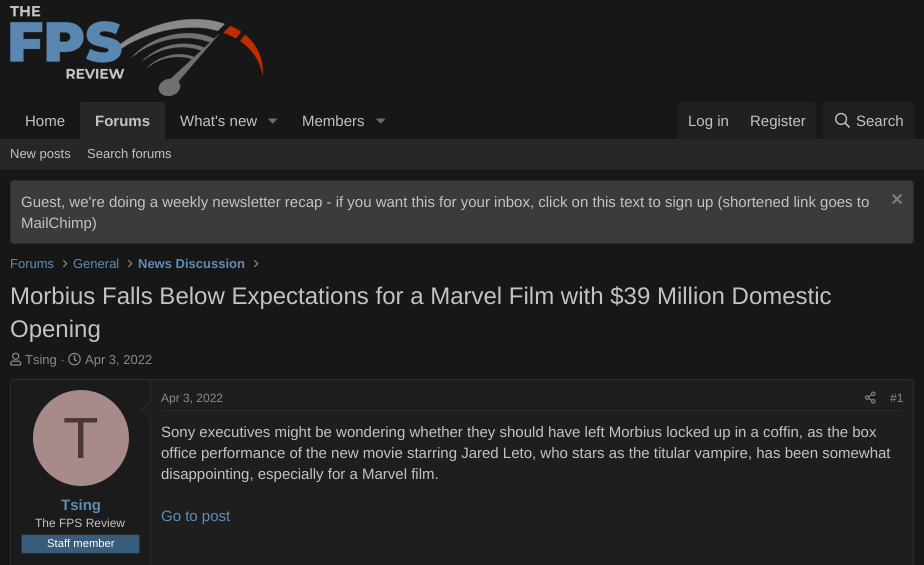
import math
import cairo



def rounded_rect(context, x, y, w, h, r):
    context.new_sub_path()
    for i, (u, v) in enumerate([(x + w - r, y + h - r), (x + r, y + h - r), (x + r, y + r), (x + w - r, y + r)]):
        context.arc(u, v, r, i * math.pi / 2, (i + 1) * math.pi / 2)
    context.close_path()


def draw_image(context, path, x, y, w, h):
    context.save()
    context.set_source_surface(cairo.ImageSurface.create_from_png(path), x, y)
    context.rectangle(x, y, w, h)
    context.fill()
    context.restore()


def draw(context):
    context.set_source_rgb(23 / 255, 23 / 255, 23 / 255)
    context.paint()
    draw_image(context, "images/1.png", 10, 6, 253, 90)
    context.set_source_rgb(40 / 255, 39 / 255, 39 / 255)
    context.new_path()
    context.move_to(82, 102)
    context.line_to(163, 102)
    context.curve_to(164, 102, 165, 103, 165, 104)
    context.line_to(165, 139)
    context.line_to(80, 139)
    context.line_to(80, 104)
    context.curve_to(80, 103, 81, 102, 82, 102)
    context.close_path()
    context.fill()
    draw_image(context, "images/2.png", 268, 118, 9, 6)
    draw_image(context, "images/2.png", 376, 118, 9, 6)
    context.set_source_rgb(33 / 255, 32 / 255, 32 / 255)
    context.new_path()
    context.move_to(682, 102)
    context.line_to(812, 102)
    context.curve_to(814, 102, 816, 104, 816, 106)
    context.line_to(816, 139)
    context.line_to(678, 139)
    context.line_to(678, 106)
    context.curve_to(678, 104, 680, 102, 682, 102)
    context.close_path()
    context.fill()
    context.new_path()
    context.move_to(827, 102)
    context.line_to(910, 102)
    context.curve_to(912, 102, 914, 104, 914, 106)
    context.line_to(914, 139)
    context.line_to(823, 139)
    context.line_to(823, 106)
    context.curve_to(823, 104, 825, 102, 827, 102)
    context.close_path()
    context.fill()
    draw_image(context, "images/3.png", 835, 112, 15, 16)
    context.set_source_rgb(40 / 255, 39 / 255, 39 / 255)
    context.rectangle(0, 139, 924, 30)
    context.fill()
    context.set_source_rgb(33 / 255, 32 / 255, 32 / 255)
    context.rectangle(0, 169, 924, 1)
    context.fill()
    context.set_source_rgb(59 / 255, 59 / 255, 59 / 255)
    rounded_rect(context, 10.5, 180.5, 903, 63, 3.5)
    context.fill_preserve()
    context.set_source_rgb(46 / 255, 45 / 255, 45 / 255)
    context.set_line_width(1)
    context.stroke()
    draw_image(context, "images/4.png", 892, 194, 10, 10)
    draw_image(context, "images/5.png", 63, 260, 5, 8)
    draw_image(context, "images/5.png", 128, 260, 5, 8)
    draw_image(context, "images/5.png", 254, 260, 5, 8)
    draw_image(context, "images/6.png", 10, 352, 12, 14)
    draw_image(context, "images/7.png", 68, 352, 13, 14)
    context.set_source_rgb(31 / 255, 30 / 255, 30 / 255)
    rounded_rect(context, 10.5, 379.5, 903, 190, 3.5)
    context.fill_preserve()
    context.set_source_rgb(46 / 255, 45 / 255, 45 / 255)
    context.stroke()
    context.set_source_rgb(27 / 255, 27 / 255, 27 / 255)
    context.new_path()
    context.move_to(14, 380)
    context.line_to(151, 380)
    context.line_to(151, 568)
    context.line_to(14, 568)
    context.curve_to(12.5, 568, 11, 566.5, 11, 565)
    context.line_to(11, 383)
    context.curve_to(11, 381.5, 12.5, 380, 14, 380)
    context.close_path()
    context.fill()
    context.set_source_rgb(46 / 255, 45 / 255, 45 / 255)
    context.rectangle(150, 380, 1, 185)
    context.fill()
    context.new_path()
    context.move_to(151, 400)
    context.line_to(151, 420)
    context.line_to(141, 410)
    context.close_path()
    context.fill()
    context.set_source_rgb(31 / 255, 30 / 255, 30 / 255)
    context.new_path()
    context.move_to(151, 401)
    context.line_to(151, 419)
    context.line_to(142, 410)
    context.close_path()
    context.fill()
    context.set_source_rgb(168 / 255, 138 / 255, 138 / 255)
    context.arc(81, 438, 48, 0, 2 * math.pi)
    context.fill()
    context.set_source_rgb(56 / 255, 92 / 255, 123 / 255)
    rounded_rect(context, 21.5, 534.5, 118, 19, 1.5)
    context.fill_preserve()
    context.set_source_rgb(46 / 255, 45 / 255, 45 / 255)
    context.stroke()
    context.set_source_rgb(40 / 255, 40 / 255, 40 / 255)
    context.rectangle(161, 410, 742, 1)
    context.fill()
    draw_image(context, "images/8.png", 865, 391, 11, 13)
    context.select_font_face("Liberation Sans")
    context.set_font_size(15)
    context.set_source_rgb(196 / 255, 194 / 255, 194 / 255)
    context.move_to(25, 126)
    context.show_text("Home")
    context.select_font_face("Liberation Sans", cairo.FontSlant.NORMAL, cairo.FontWeight.BOLD)
    context.move_to(95, 126)
    context.show_text("Forums")
    context.select_font_face("Liberation Sans")
    context.move_to(180, 126)
    context.show_text("What's new")
    context.move_to(302, 126)
    context.show_text("Members")
    context.move_to(688, 126)
    context.show_text("Log in")
    context.move_to(750, 126)
    context.show_text("Register")
    context.move_to(856, 126)
    context.show_text("Search")
    context.set_font_size(13)
    context.move_to(10, 158)
    context.show_text("New posts")
    context.move_to(87, 158)
    context.show_text("Search forums")
    context.set_font_size(15)
    context.move_to(21, 207)
    context.show_text("Guest, we're doing a weekly newsletter recap - if you want this for your inbox, click on this text to sign up (shortened link goes to")
    context.move_to(21, 228)
    context.show_text("MailChimp)")
    context.set_font_size(13)
    context.set_source_rgb(93 / 255, 141 / 255, 184 / 255)
    context.move_to(10, 268)
    context.show_text("Forums")
    context.move_to(73, 268)
    context.show_text("General")
    context.select_font_face("Liberation Sans", cairo.FontSlant.NORMAL, cairo.FontWeight.BOLD)
    context.move_to(138, 268)
    context.show_text("News Discussion")
    context.select_font_face("Liberation Sans")
    context.set_font_size(24)
    context.set_source_rgb(196 / 255, 194 / 255, 194 / 255)
    context.move_to(10, 304)
    context.show_text("Morbius Falls Below Expectations for a Marvel Film with $39 Million Domestic")
    context.move_to(10, 337)
    context.show_text("Opening")
    context.set_font_size(13)
    context.set_source_rgb(140 / 255, 137 / 255, 137 / 255)
    context.move_to(25, 364)
    context.show_text("Tsing ·")
    context.move_to(85, 364)
    context.show_text("Apr 3, 2022")
    context.set_font_size(58)
    context.set_source_rgb(73 / 255, 54 / 255, 54 / 255)
    context.move_to(63, 458)
    context.show_text("T")
    context.select_font_face("Liberation Sans", cairo.FontSlant.NORMAL, cairo.FontWeight.BOLD)
    context.set_font_size(15)
    context.set_source_rgb(93 / 255, 141 / 255, 184 / 255)
    context.move_to(61, 510)
    context.show_text("Tsing")
    context.select_font_face("Liberation Sans")
    context.set_font_size(12)
    context.set_source_rgb(196 / 255, 194 / 255, 194 / 255)
    context.move_to(35, 527)
    context.show_text("The FPS Review")
    context.set_font_size(11.25)
    context.set_source_rgb(1, 1, 1)
    context.move_to(47, 547)
    context.show_text("Staff member")
    context.set_font_size(12)
    context.set_source_rgb(140 / 255, 137 / 255, 137 / 255)
    context.move_to(161, 402)
    context.show_text("Apr 3, 2022")
    context.move_to(890, 402)
    context.show_text("#1")
    context.set_font_size(15)
    context.set_source_rgb(196 / 255, 194 / 255, 194 / 255)
    context.move_to(161, 437)
    context.show_text("Sony executives might be wondering whether they should have left Morbius locked up in a coffin, as the box")
    context.move_to(161, 458)
    context.show_text("office performance of the new movie starring Jared Leto, who stars as the titular vampire, has been somewhat")
    context.move_to(161, 479)
    context.show_text("disappointing, especially for a Marvel film.")
    context.set_source_rgb(93 / 255, 141 / 255, 184 / 255)
    context.move_to(161, 521)
    context.show_text("Go to post")


surface = cairo.ImageSurface(cairo.Format.RGB24, 924, 565)
context = cairo.Context(surface)
options = cairo.FontOptions()
options.set_hint_metrics(cairo.HintMetrics.OFF)
options.set_hint_style(cairo.HintStyle.NONE)
context.set_font_options(options)
context.set_miter_limit(4)
draw(context)
surface.write_to_png("out.png")
